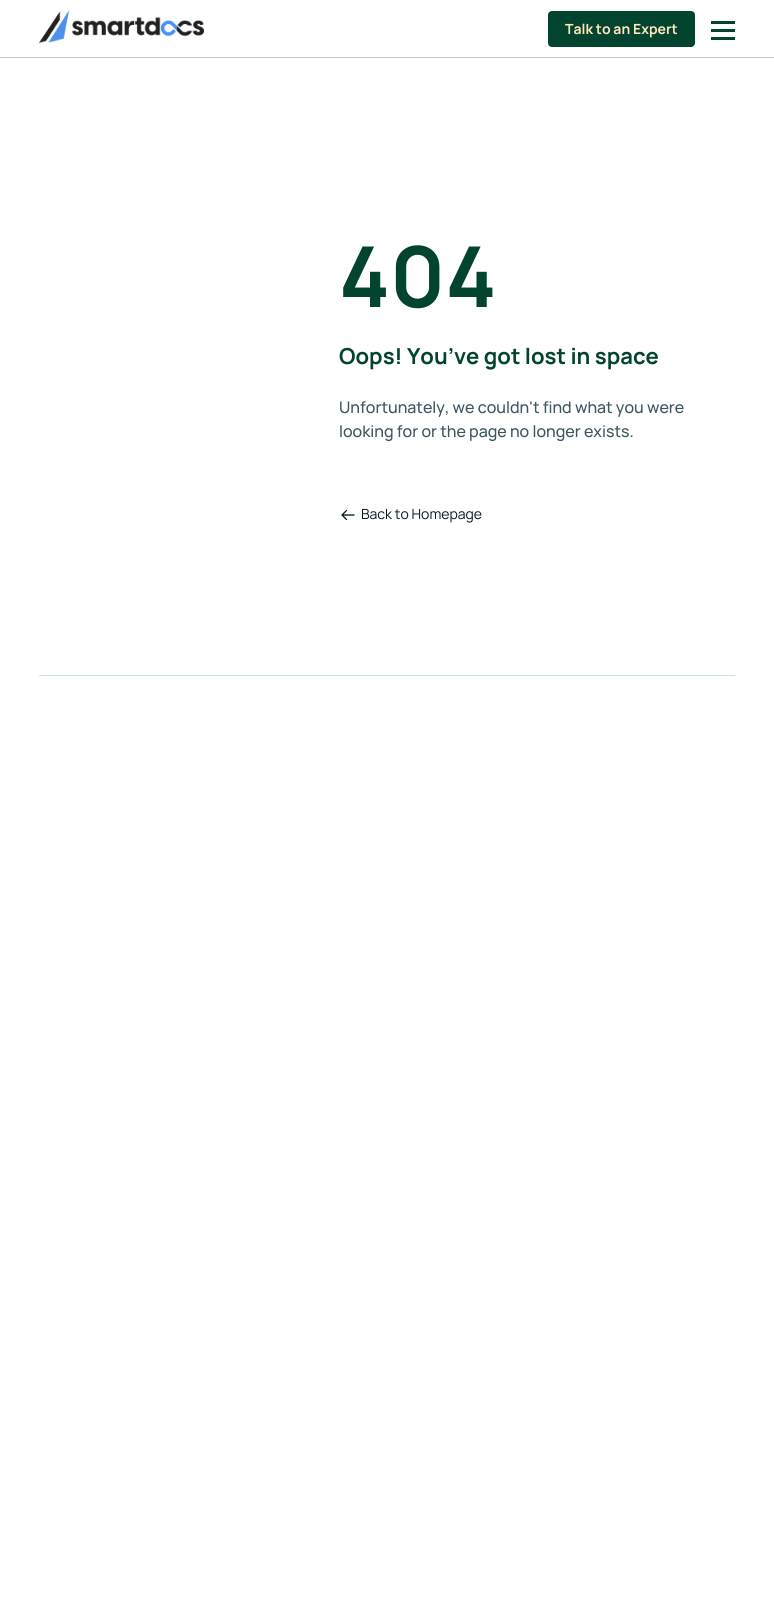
import math
import cairo



def rounded_rect(context, x, y, w, h, r):
    context.new_sub_path()
    for i, (u, v) in enumerate([(x + w - r, y + h - r), (x + r, y + h - r), (x + r, y + r), (x + w - r, y + r)]):
        context.arc(u, v, r, i * math.pi / 2, (i + 1) * math.pi / 2)
    context.close_path()


def draw_image(context, path, x, y, w, h):
    context.save()
    context.set_source_surface(cairo.ImageSurface.create_from_png(path), x, y)
    context.rectangle(x, y, w, h)
    context.fill()
    context.restore()


def draw(context):
    context.set_source_rgb(1, 1, 1)
    context.paint()
    context.set_source_rgb(185 / 255, 202 / 255, 208 / 255)
    context.rectangle(0, 57, 774, 1)
    context.fill()
    draw_image(context, "images/1.png", 39, 10, 165, 33)
    context.set_source_rgb(2 / 255, 68 / 255, 48 / 255)
    rounded_rect(context, 548, 11, 147, 36, 4)
    context.fill()
    context.rectangle(711, 21, 24, 3)
    context.fill()
    context.rectangle(711, 29, 24, 3)
    context.fill()
    context.rectangle(711, 37, 24, 3)
    context.fill()
    context.new_path()
    context.move_to(346.5, 519.5)
    context.line_to(342, 515)
    context.move_to(342, 515)
    context.line_to(346.5, 510.5)
    context.move_to(342, 515)
    context.line_to(354, 515)
    context.set_source_rgb(7 / 255, 25 / 255, 32 / 255)
    context.set_line_width(1.3)
    context.set_line_cap(cairo.LineCap.ROUND)
    context.set_line_join(cairo.LineJoin.ROUND)
    context.stroke()
    context.set_source_rgb(205 / 255, 226 / 255, 231 / 255)
    context.rectangle(39, 675, 696, 1)
    context.fill()
    context.select_font_face("Manrope", cairo.FontSlant.NORMAL, cairo.FontWeight.BOLD)
    context.set_font_size(14)
    context.set_source_rgb(1, 231 / 255, 187 / 255)
    context.move_to(565, 34)
    context.show_text("Talk to an Expert")
    context.set_font_size(84)
    context.set_source_rgb(2 / 255, 68 / 255, 48 / 255)
    context.move_to(339, 307)
    context.show_text("404")
    context.set_font_size(22)
    context.move_to(339, 364)
    context.show_text("Oops! You’ve got lost in space")
    context.select_font_face("Manrope Medium")
    context.set_font_size(16)
    context.set_source_rgb(61 / 255, 86 / 255, 95 / 255)
    context.move_to(339, 413)
    context.show_text("Unfortunately, we couldn't find what you were")
    context.move_to(339, 437)
    context.show_text("looking for or the page no longer exists.")
    context.select_font_face("Manrope")
    context.set_font_size(14)
    context.set_source_rgb(7 / 255, 25 / 255, 32 / 255)
    context.move_to(361, 519)
    context.show_text("Back to Homepage")


surface = cairo.ImageSurface(cairo.Format.RGB24, 774, 1600)
context = cairo.Context(surface)
options = cairo.FontOptions()
options.set_hint_metrics(cairo.HintMetrics.OFF)
options.set_hint_style(cairo.HintStyle.NONE)
context.set_font_options(options)
context.set_miter_limit(4)
draw(context)
surface.write_to_png("out.png")
